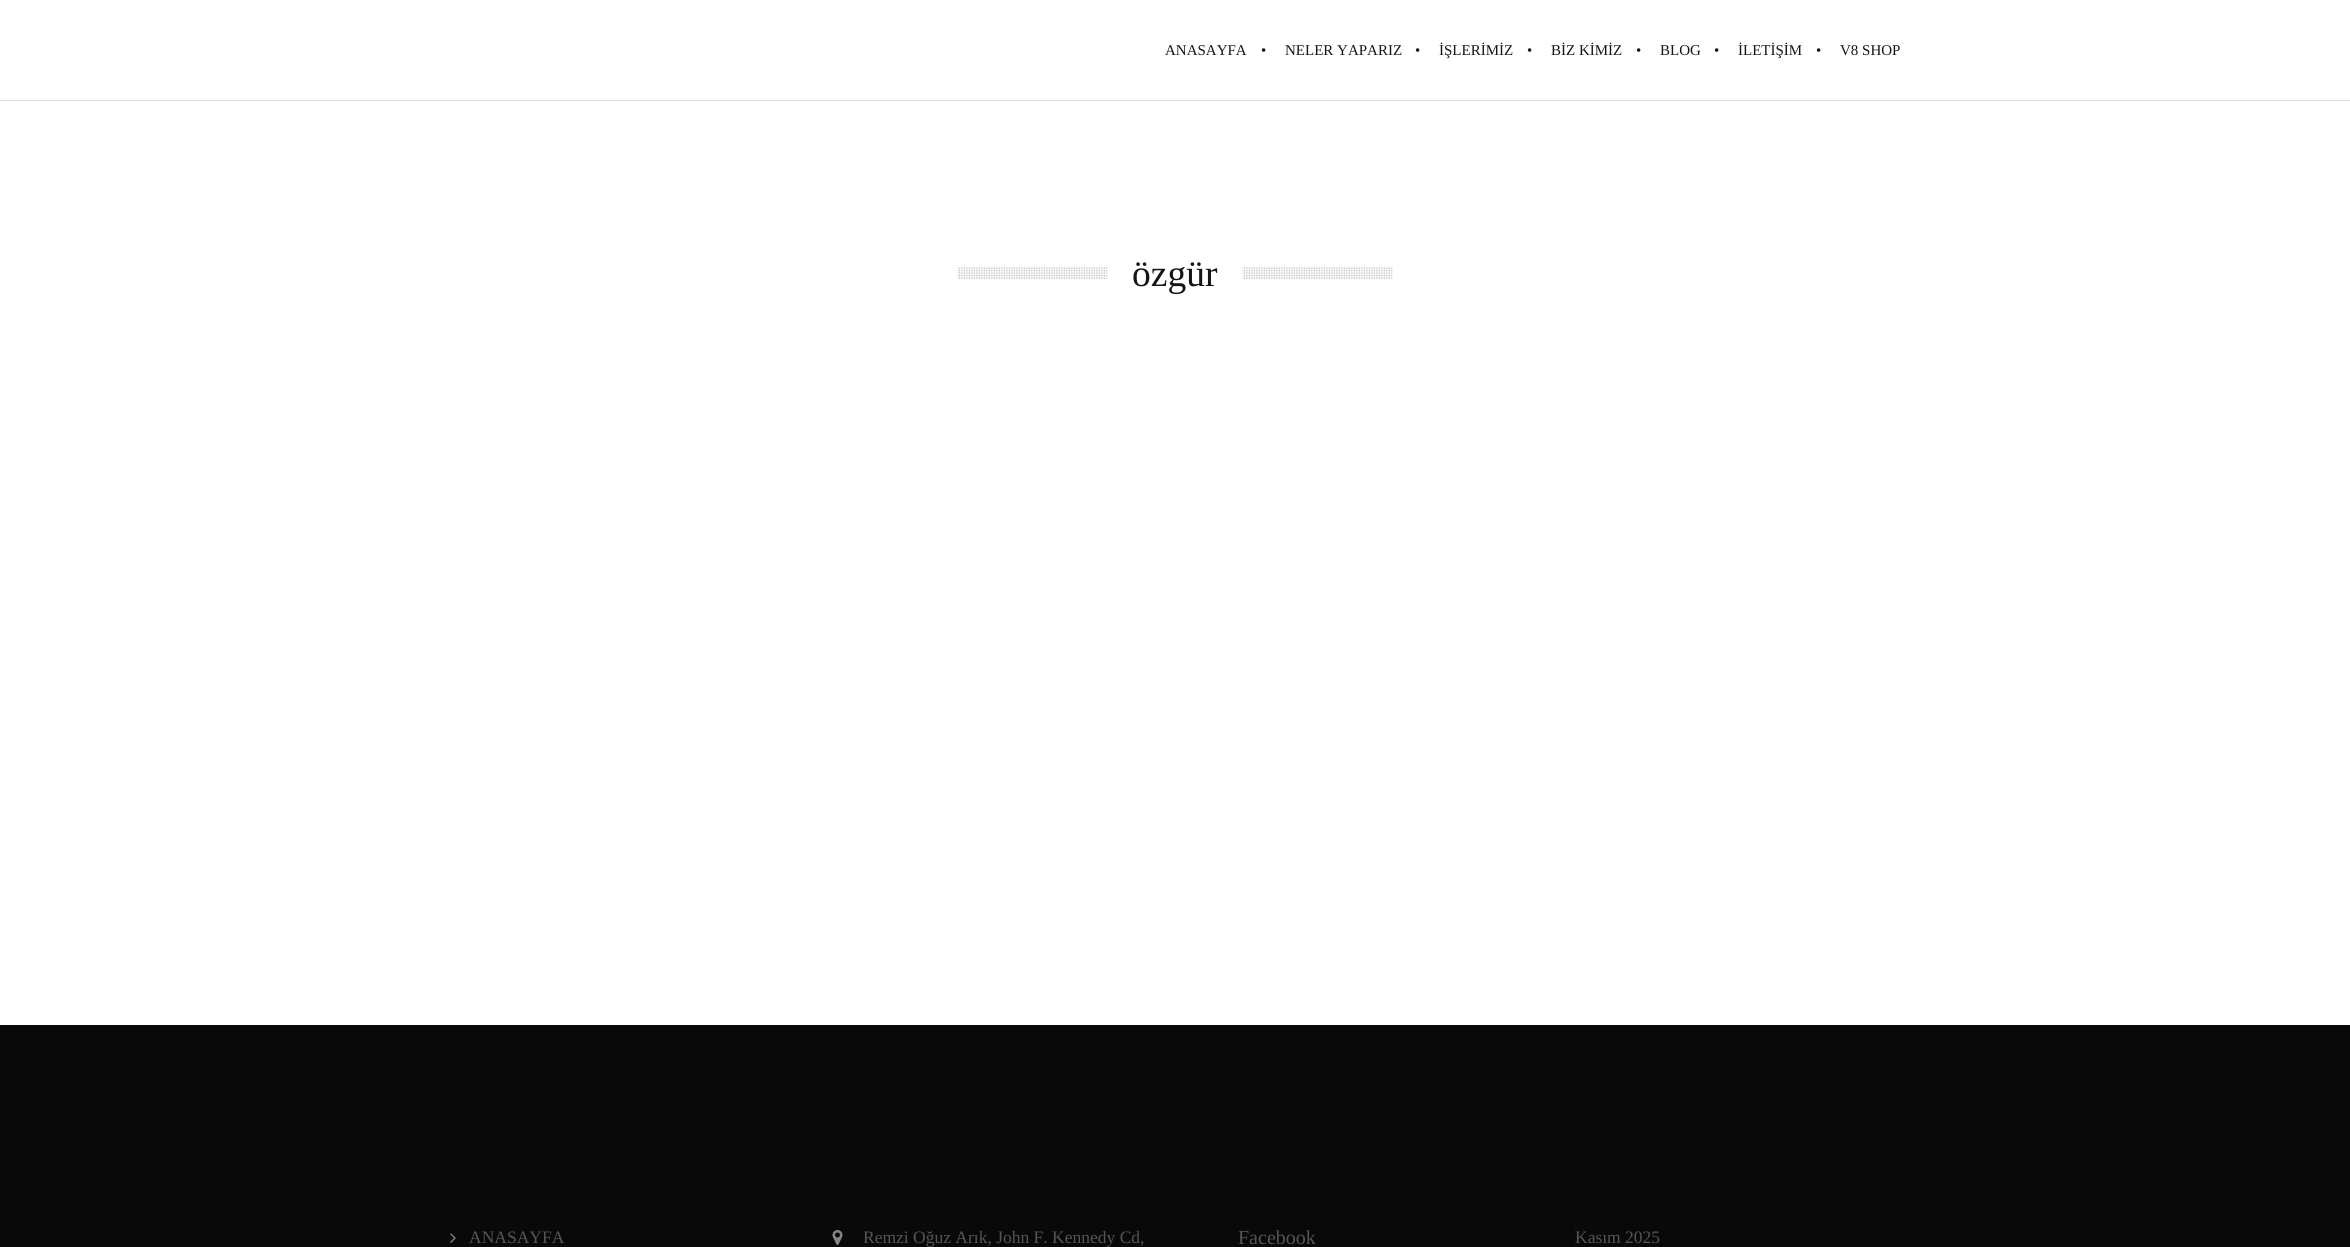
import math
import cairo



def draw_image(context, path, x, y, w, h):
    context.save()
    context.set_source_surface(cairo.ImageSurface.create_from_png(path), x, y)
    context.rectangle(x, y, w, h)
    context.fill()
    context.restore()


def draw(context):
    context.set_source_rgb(1, 1, 1)
    context.paint()
    context.set_source_rgb(221 / 255, 221 / 255, 221 / 255)
    context.rectangle(0, 100, 2350, 1)
    context.fill()
    draw_image(context, "images/1.png", 957, 267, 151, 12)
    draw_image(context, "images/1.png", 1242, 267, 151, 12)
    context.set_source_rgb(9 / 255, 9 / 255, 9 / 255)
    context.rectangle(0, 1025, 2350, 222)
    context.fill()
    draw_image(context, "images/2.png", 450, 1233, 6, 10)
    draw_image(context, "images/3.png", 832, 1230, 11, 15)
    context.set_source_rgb(12 / 255, 12 / 255, 12 / 255)
    context.rectangle(1899, 1220, 1, 27)
    context.fill()
    context.rectangle(1575, 1220, 1, 27)
    context.fill()
    context.select_font_face("Liberation Serif")
    context.set_font_size(15)
    context.set_source_rgb(21 / 255, 21 / 255, 21 / 255)
    context.move_to(1165, 55)
    context.show_text("ANASAYFA")
    context.move_to(1261, 55)
    context.show_text("•")
    context.move_to(1285, 55)
    context.show_text("NELER YAPARIZ")
    context.move_to(1415, 55)
    context.show_text("•")
    context.move_to(1439, 55)
    context.show_text("İŞLERİMİZ")
    context.move_to(1527, 55)
    context.show_text("•")
    context.move_to(1551, 55)
    context.show_text("BİZ KİMİZ")
    context.move_to(1636, 55)
    context.show_text("•")
    context.move_to(1660, 55)
    context.show_text("BLOG")
    context.move_to(1714, 55)
    context.show_text("•")
    context.move_to(1738, 55)
    context.show_text("İLETİŞİM")
    context.move_to(1816, 55)
    context.show_text("•")
    context.move_to(1840, 55)
    context.show_text("V8 SHOP")
    context.set_font_size(37.5)
    context.move_to(1132, 286)
    context.show_text("özgür")
    context.set_font_size(17.5)
    context.set_source_rgb(85 / 255, 85 / 255, 85 / 255)
    context.move_to(469, 1243)
    context.show_text("ANASAYFA")
    context.move_to(863, 1243)
    context.show_text("Remzi Oğuz Arık, John F. Kennedy Cd,")
    context.set_font_size(20)
    context.move_to(1238, 1244)
    context.show_text("Facebook")
    context.set_font_size(17.5)
    context.move_to(1575, 1243)
    context.show_text("Kasım 2025")


surface = cairo.ImageSurface(cairo.Format.RGB24, 2350, 1247)
context = cairo.Context(surface)
options = cairo.FontOptions()
options.set_hint_metrics(cairo.HintMetrics.OFF)
options.set_hint_style(cairo.HintStyle.NONE)
context.set_font_options(options)
context.set_miter_limit(4)
draw(context)
surface.write_to_png("out.png")
